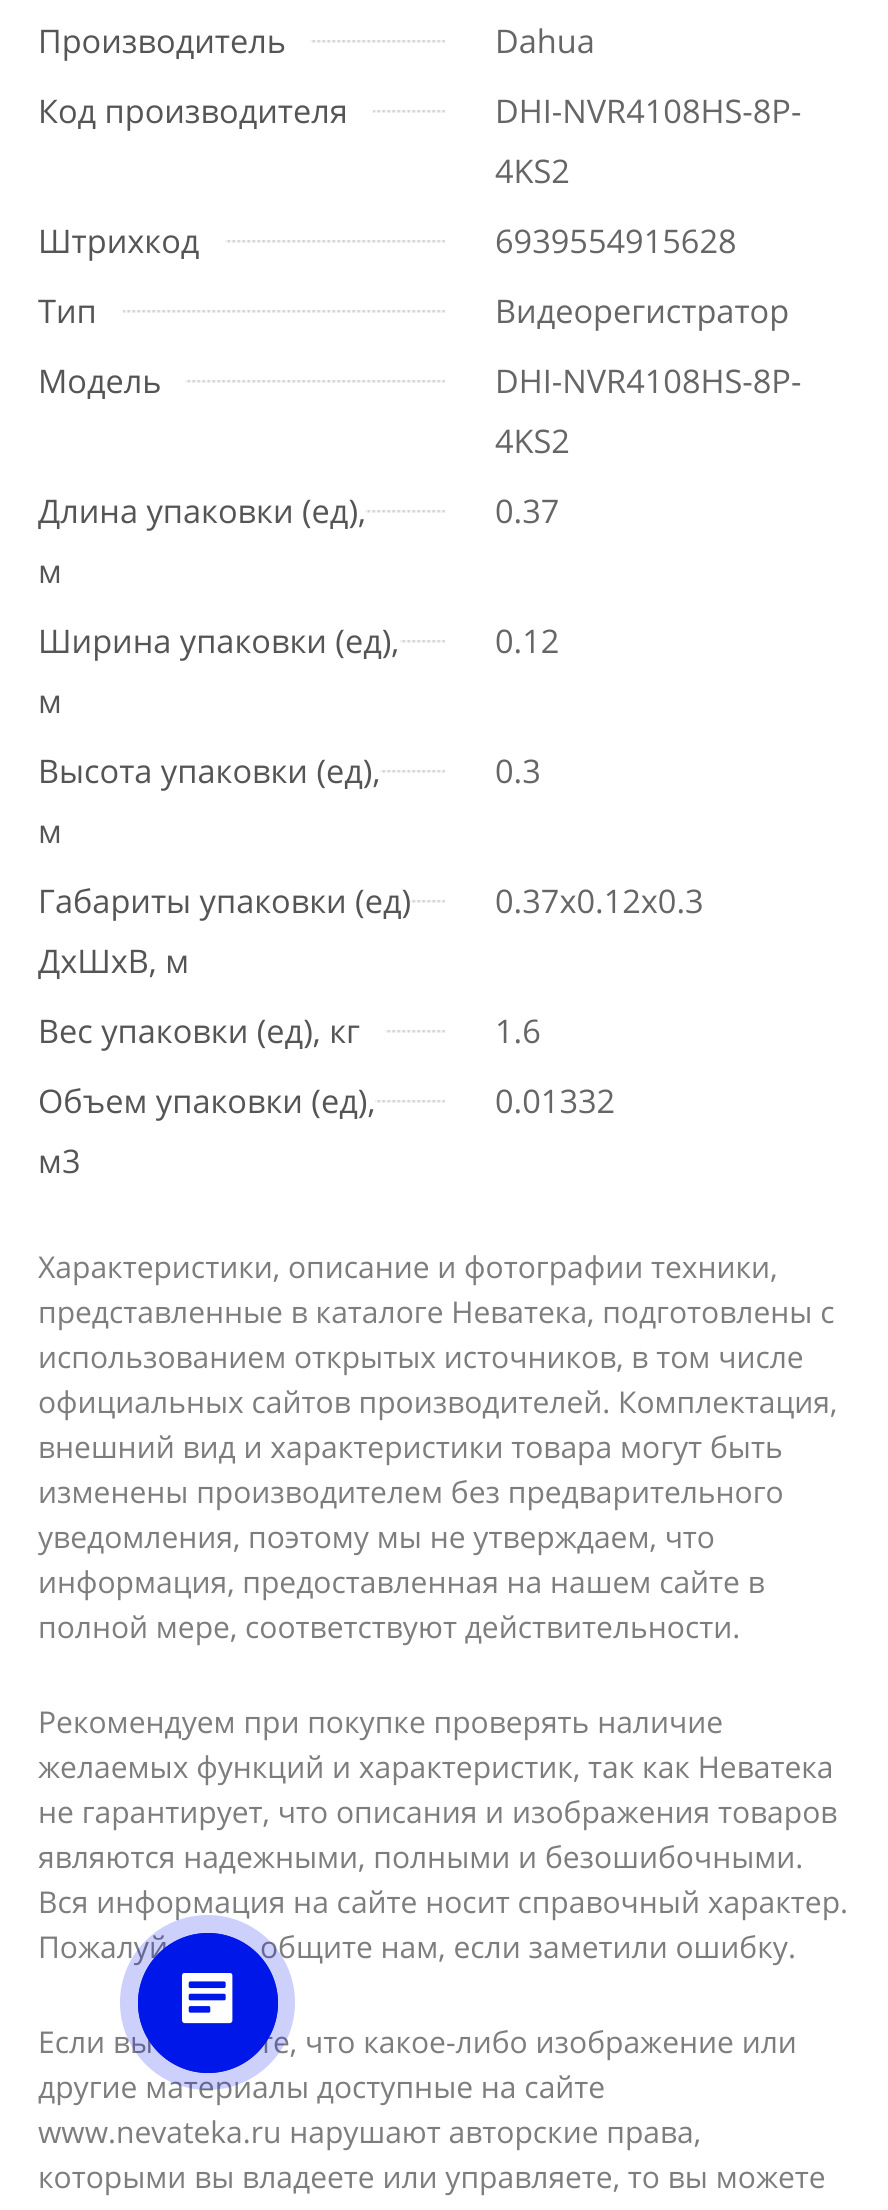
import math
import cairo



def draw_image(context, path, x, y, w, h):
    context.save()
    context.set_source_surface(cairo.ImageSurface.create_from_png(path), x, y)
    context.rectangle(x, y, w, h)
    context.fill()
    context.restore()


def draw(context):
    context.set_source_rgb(1, 1, 1)
    context.paint()
    draw_image(context, "images/1.png", 310, 40, 135, 3)
    draw_image(context, "images/2.png", 373, 110, 72, 3)
    draw_image(context, "images/3.png", 225, 240, 220, 3)
    draw_image(context, "images/4.png", 123, 310, 322, 3)
    draw_image(context, "images/5.png", 185, 380, 260, 3)
    draw_image(context, "images/6.png", 365, 510, 80, 3)
    draw_image(context, "images/7.png", 400, 640, 45, 3)
    draw_image(context, "images/8.png", 380, 770, 65, 3)
    draw_image(context, "images/9.png", 410, 900, 35, 3)
    draw_image(context, "images/10.png", 385, 1030, 60, 3)
    draw_image(context, "images/11.png", 375, 1100, 70, 3)
    context.select_font_face("Open Sans")
    context.set_font_size(32.5)
    context.set_source_rgb(85 / 255, 85 / 255, 85 / 255)
    context.move_to(38, 53)
    context.show_text("Производитель")
    context.set_source_rgb(102 / 255, 102 / 255, 102 / 255)
    context.move_to(495, 53)
    context.show_text("Dahua")
    context.set_source_rgb(85 / 255, 85 / 255, 85 / 255)
    context.move_to(38, 123)
    context.show_text("Код производителя")
    context.set_source_rgb(102 / 255, 102 / 255, 102 / 255)
    context.move_to(495, 123)
    context.show_text("DHI-NVR4108HS-8P-")
    context.move_to(495, 183)
    context.show_text("4KS2")
    context.set_source_rgb(85 / 255, 85 / 255, 85 / 255)
    context.move_to(38, 253)
    context.show_text("Штрихкод")
    context.set_source_rgb(102 / 255, 102 / 255, 102 / 255)
    context.move_to(495, 253)
    context.show_text("6939554915628")
    context.set_source_rgb(85 / 255, 85 / 255, 85 / 255)
    context.move_to(38, 323)
    context.show_text("Тип")
    context.set_source_rgb(102 / 255, 102 / 255, 102 / 255)
    context.move_to(495, 323)
    context.show_text("Видеорегистратор")
    context.set_source_rgb(85 / 255, 85 / 255, 85 / 255)
    context.move_to(38, 393)
    context.show_text("Модель")
    context.set_source_rgb(102 / 255, 102 / 255, 102 / 255)
    context.move_to(495, 393)
    context.show_text("DHI-NVR4108HS-8P-")
    context.move_to(495, 453)
    context.show_text("4KS2")
    context.save()
    context.rectangle(38, 480, 382, 120)
    context.clip()
    context.set_source_rgb(85 / 255, 85 / 255, 85 / 255)
    context.move_to(38, 523)
    context.show_text("Длина упаковки (ед),")
    context.restore()
    context.set_source_rgb(85 / 255, 85 / 255, 85 / 255)
    context.move_to(38, 583)
    context.show_text("м")
    context.set_source_rgb(102 / 255, 102 / 255, 102 / 255)
    context.move_to(495, 523)
    context.show_text("0.37")
    context.set_source_rgb(85 / 255, 85 / 255, 85 / 255)
    context.move_to(38, 653)
    context.show_text("Ширина упаковки (ед),")
    context.move_to(38, 713)
    context.show_text("м")
    context.set_source_rgb(102 / 255, 102 / 255, 102 / 255)
    context.move_to(495, 653)
    context.show_text("0.12")
    context.set_source_rgb(85 / 255, 85 / 255, 85 / 255)
    context.move_to(38, 783)
    context.show_text("Высота упаковки (ед),")
    context.move_to(38, 843)
    context.show_text("м")
    context.set_source_rgb(102 / 255, 102 / 255, 102 / 255)
    context.move_to(495, 783)
    context.show_text("0.3")
    context.set_source_rgb(85 / 255, 85 / 255, 85 / 255)
    context.move_to(38, 913)
    context.show_text("Габариты упаковки (ед)")
    context.save()
    context.rectangle(38, 870, 382, 120)
    context.clip()
    context.move_to(38, 973)
    context.show_text("ДхШхВ, м")
    context.restore()
    context.set_source_rgb(102 / 255, 102 / 255, 102 / 255)
    context.move_to(495, 913)
    context.show_text("0.37x0.12x0.3")
    context.set_source_rgb(85 / 255, 85 / 255, 85 / 255)
    context.move_to(38, 1043)
    context.show_text("Вес упаковки (ед), кг")
    context.set_source_rgb(102 / 255, 102 / 255, 102 / 255)
    context.move_to(495, 1043)
    context.show_text("1.6")
    context.set_source_rgb(85 / 255, 85 / 255, 85 / 255)
    context.move_to(38, 1113)
    context.show_text("Объем упаковки (ед),")
    context.move_to(38, 1173)
    context.show_text("м3")
    context.set_source_rgb(102 / 255, 102 / 255, 102 / 255)
    context.move_to(495, 1113)
    context.show_text("0.01332")
    context.set_font_size(30)
    context.set_source_rgb(125 / 255, 125 / 255, 125 / 255)
    context.move_to(38, 1278)
    context.show_text("Характеристики, описание и фотографии техники,")
    context.move_to(38, 1323)
    context.show_text("представленные в каталоге Неватека, подготовлены с")
    context.move_to(38, 1368)
    context.show_text("использованием открытых источников, в том числе")
    context.move_to(38, 1413)
    context.show_text("официальных сайтов производителей. Комплектация,")
    context.move_to(38, 1458)
    context.show_text("внешний вид и характеристики товара могут быть")
    context.move_to(38, 1503)
    context.show_text("изменены производителем без предварительного")
    context.move_to(38, 1548)
    context.show_text("уведомления, поэтому мы не утверждаем, что")
    context.move_to(38, 1593)
    context.show_text("информация, предоставленная на нашем сайте в")
    context.move_to(38, 1638)
    context.show_text("полной мере, соответствуют действительности.")
    context.move_to(38, 1733)
    context.show_text("Рекомендуем при покупке проверять наличие")
    context.move_to(38, 1778)
    context.show_text("желаемых функций и характеристик, так как Неватека")
    context.move_to(38, 1823)
    context.show_text("не гарантирует, что описания и изображения товаров")
    context.move_to(38, 1868)
    context.show_text("являются надежными, полными и безошибочными.")
    context.move_to(38, 1913)
    context.show_text("Вся информация на сайте носит справочный характер.")
    context.move_to(38, 1958)
    context.show_text("Пожалуй")
    context.move_to(260, 1958)
    context.show_text("общите нам, если заметили ошибку.")
    context.move_to(38, 2053)
    context.show_text("Если вы")
    context.move_to(259, 2053)
    context.show_text("те, что какое-либо изображение или")
    context.move_to(38, 2098)
    context.show_text("другие материалы доступные на сайте")
    context.move_to(38, 2143)
    context.show_text("www.nevateka.ru нарушают авторские права,")
    context.move_to(38, 2188)
    context.show_text("которыми вы владеете или управляете, то вы можете")
    context.set_source_rgba(0, 23 / 255, 233 / 255, 0.2)
    context.new_path()
    context.arc(207.5, 2002.5, 87.5, 0, 2 * math.pi)
    context.fill()
    context.arc(208, 2003, 69, 0, 2 * math.pi)
    context.set_source_rgb(0, 23 / 255, 233 / 255)
    context.stroke()
    context.arc(208, 2003, 70, 0, 2 * math.pi)
    context.fill()
    draw_image(context, "images/12.png", 182, 1973, 51, 51)


surface = cairo.ImageSurface(cairo.Format.RGB24, 888, 2210)
context = cairo.Context(surface)
options = cairo.FontOptions()
options.set_hint_metrics(cairo.HintMetrics.OFF)
options.set_hint_style(cairo.HintStyle.NONE)
context.set_font_options(options)
context.set_miter_limit(4)
draw(context)
surface.write_to_png("out.png")
